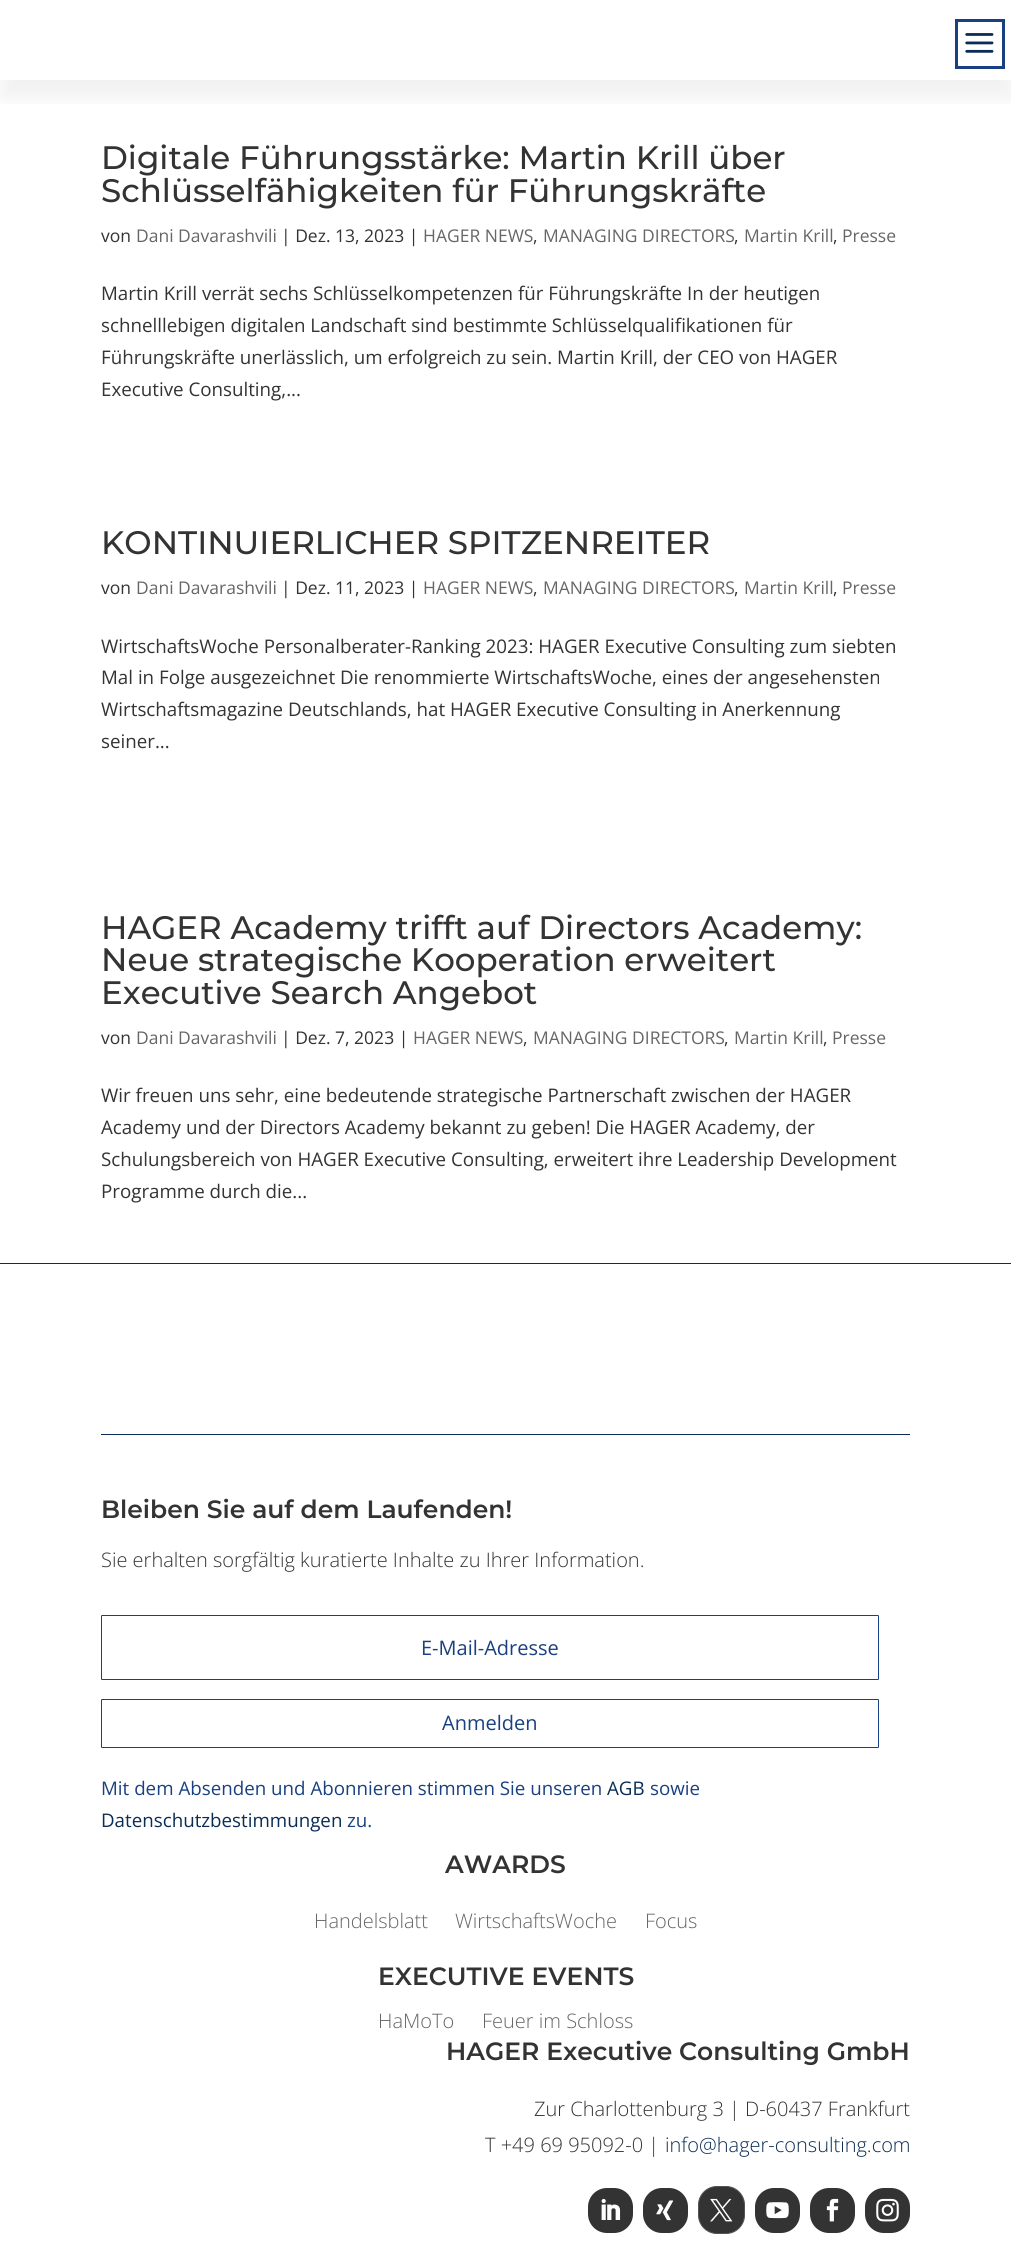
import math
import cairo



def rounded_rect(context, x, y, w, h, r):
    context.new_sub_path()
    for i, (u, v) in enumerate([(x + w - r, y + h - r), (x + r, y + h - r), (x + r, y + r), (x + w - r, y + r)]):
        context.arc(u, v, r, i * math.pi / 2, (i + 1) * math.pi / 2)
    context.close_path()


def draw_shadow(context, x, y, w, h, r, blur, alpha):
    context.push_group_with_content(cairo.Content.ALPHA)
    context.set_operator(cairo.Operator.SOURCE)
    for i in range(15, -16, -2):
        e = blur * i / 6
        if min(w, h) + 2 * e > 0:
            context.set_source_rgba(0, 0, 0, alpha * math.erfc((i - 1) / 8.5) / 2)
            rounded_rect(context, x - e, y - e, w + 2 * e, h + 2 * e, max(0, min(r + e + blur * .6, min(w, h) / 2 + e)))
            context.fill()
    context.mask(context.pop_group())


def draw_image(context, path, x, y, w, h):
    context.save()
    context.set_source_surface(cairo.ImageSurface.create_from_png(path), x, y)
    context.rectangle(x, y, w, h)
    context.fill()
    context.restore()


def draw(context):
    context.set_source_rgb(1, 1, 1)
    context.paint()
    context.save()
    context.rectangle(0, 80, 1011, 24)
    context.clip()
    context.set_source_rgb(0, 0, 0)
    draw_shadow(context, 1, 19, 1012, 80, 0, 11, 0.06)
    context.restore()
    context.rectangle(956.5, 20.5, 47, 47)
    context.set_source_rgb(25 / 255, 64 / 255, 128 / 255)
    context.set_line_width(3)
    context.stroke()
    draw_image(context, "images/1.png", 965, 33, 29, 20)
    context.set_source_rgb(11 / 255, 45 / 255, 85 / 255)
    context.rectangle(0, 1263, 1011, 1)
    context.fill()
    context.rectangle(101, 1434, 809, 1)
    context.fill()
    rounded_rect(context, 101.5, 1615.5, 777, 64, 0.5)
    context.set_source_rgb(25 / 255, 64 / 255, 128 / 255)
    context.set_line_width(1)
    context.stroke()
    rounded_rect(context, 101.5, 1699.5, 777, 48, 0.5)
    context.stroke()
    context.set_source_rgb(51 / 255, 51 / 255, 51 / 255)
    rounded_rect(context, 588, 2188, 45, 45, 19)
    context.fill()
    draw_image(context, "images/2.png", 601, 2198, 20, 22)
    rounded_rect(context, 643, 2188, 45, 45, 19)
    context.fill()
    draw_image(context, "images/3.png", 656, 2200, 18, 21)
    rounded_rect(context, 698.5, 2186.5, 46, 47, 18.5)
    context.fill_preserve()
    context.set_source_rgb(84 / 255, 84 / 255, 84 / 255)
    context.stroke()
    draw_image(context, "images/4.png", 710, 2198, 23, 24)
    context.set_source_rgb(51 / 255, 51 / 255, 51 / 255)
    rounded_rect(context, 755, 2188, 45, 45, 19)
    context.fill()
    draw_image(context, "images/5.png", 766, 2202, 23, 17)
    rounded_rect(context, 810, 2188, 45, 45, 19)
    context.fill()
    draw_image(context, "images/6.png", 826, 2198, 13, 24)
    rounded_rect(context, 865, 2188, 45, 45, 19)
    context.fill()
    draw_image(context, "images/7.png", 876, 2198, 23, 24)
    context.select_font_face("Montserrat Medium")
    context.set_font_size(32.5)
    context.move_to(101, 169)
    context.show_text("Digitale Führungsstärke: Martin Krill über")
    context.move_to(101, 202)
    context.show_text("Schlüsselfähigkeiten für Führungskräfte")
    context.select_font_face("Open Sans")
    context.set_font_size(17.5)
    context.move_to(101, 242)
    context.show_text("von")
    context.set_source_rgb(102 / 255, 102 / 255, 102 / 255)
    context.move_to(136, 242)
    context.show_text("Dani Davarashvili")
    context.set_source_rgb(51 / 255, 51 / 255, 51 / 255)
    context.move_to(281, 242)
    context.show_text("| Dez. 13, 2023 |")
    context.set_source_rgb(102 / 255, 102 / 255, 102 / 255)
    context.move_to(423, 242)
    context.show_text("HAGER NEWS")
    context.set_source_rgb(51 / 255, 51 / 255, 51 / 255)
    context.move_to(533, 242)
    context.show_text(",")
    context.set_source_rgb(102 / 255, 102 / 255, 102 / 255)
    context.move_to(543, 242)
    context.show_text("MANAGING DIRECTORS")
    context.set_source_rgb(51 / 255, 51 / 255, 51 / 255)
    context.move_to(734, 242)
    context.show_text(",")
    context.set_source_rgb(102 / 255, 102 / 255, 102 / 255)
    context.move_to(744, 242)
    context.show_text("Martin Krill")
    context.set_source_rgb(51 / 255, 51 / 255, 51 / 255)
    context.move_to(833, 242)
    context.show_text(",")
    context.set_source_rgb(102 / 255, 102 / 255, 102 / 255)
    context.move_to(842, 242)
    context.show_text("Presse")
    context.set_font_size(18.75)
    context.set_source_rgb(51 / 255, 51 / 255, 51 / 255)
    context.move_to(101, 300)
    context.show_text("Martin Krill verrät sechs Schlüsselkompetenzen für Führungskräfte In der heutigen")
    context.move_to(101, 332)
    context.show_text("schnelllebigen digitalen Landschaft sind bestimmte Schlüsselqualifikationen für")
    context.move_to(101, 364)
    context.show_text("Führungskräfte unerlässlich, um erfolgreich zu sein. Martin Krill, der CEO von HAGER")
    context.move_to(101, 396)
    context.show_text("Executive Consulting,...")
    context.select_font_face("Montserrat Medium")
    context.set_font_size(32.5)
    context.move_to(101, 554)
    context.show_text("KONTINUIERLICHER SPITZENREITER")
    context.select_font_face("Open Sans")
    context.set_font_size(17.5)
    context.move_to(101, 594)
    context.show_text("von")
    context.set_source_rgb(102 / 255, 102 / 255, 102 / 255)
    context.move_to(136, 594)
    context.show_text("Dani Davarashvili")
    context.set_source_rgb(51 / 255, 51 / 255, 51 / 255)
    context.move_to(281, 594)
    context.show_text("| Dez. 11, 2023 |")
    context.set_source_rgb(102 / 255, 102 / 255, 102 / 255)
    context.move_to(423, 594)
    context.show_text("HAGER NEWS")
    context.set_source_rgb(51 / 255, 51 / 255, 51 / 255)
    context.move_to(533, 594)
    context.show_text(",")
    context.set_source_rgb(102 / 255, 102 / 255, 102 / 255)
    context.move_to(543, 594)
    context.show_text("MANAGING DIRECTORS")
    context.set_source_rgb(51 / 255, 51 / 255, 51 / 255)
    context.move_to(734, 594)
    context.show_text(",")
    context.set_source_rgb(102 / 255, 102 / 255, 102 / 255)
    context.move_to(744, 594)
    context.show_text("Martin Krill")
    context.set_source_rgb(51 / 255, 51 / 255, 51 / 255)
    context.move_to(833, 594)
    context.show_text(",")
    context.set_source_rgb(102 / 255, 102 / 255, 102 / 255)
    context.move_to(842, 594)
    context.show_text("Presse")
    context.set_font_size(18.75)
    context.set_source_rgb(51 / 255, 51 / 255, 51 / 255)
    context.move_to(101, 653)
    context.show_text("WirtschaftsWoche Personalberater-Ranking 2023: HAGER Executive Consulting zum siebten")
    context.move_to(101, 684)
    context.show_text("Mal in Folge ausgezeichnet Die renommierte WirtschaftsWoche, eines der angesehensten")
    context.move_to(101, 716)
    context.show_text("Wirtschaftsmagazine Deutschlands, hat HAGER Executive Consulting in Anerkennung")
    context.move_to(101, 748)
    context.show_text("seiner...")
    context.select_font_face("Montserrat Medium")
    context.set_font_size(32.5)
    context.move_to(101, 939)
    context.show_text("HAGER Academy trifft auf Directors Academy:")
    context.move_to(101, 971)
    context.show_text("Neue strategische Kooperation erweitert")
    context.move_to(101, 1004)
    context.show_text("Executive Search Angebot")
    context.select_font_face("Open Sans")
    context.set_font_size(17.5)
    context.move_to(101, 1044)
    context.show_text("von")
    context.set_source_rgb(102 / 255, 102 / 255, 102 / 255)
    context.move_to(136, 1044)
    context.show_text("Dani Davarashvili")
    context.set_source_rgb(51 / 255, 51 / 255, 51 / 255)
    context.move_to(281, 1044)
    context.show_text("| Dez. 7, 2023 |")
    context.set_source_rgb(102 / 255, 102 / 255, 102 / 255)
    context.move_to(413, 1044)
    context.show_text("HAGER NEWS")
    context.set_source_rgb(51 / 255, 51 / 255, 51 / 255)
    context.move_to(523, 1044)
    context.show_text(",")
    context.set_source_rgb(102 / 255, 102 / 255, 102 / 255)
    context.move_to(533, 1044)
    context.show_text("MANAGING DIRECTORS")
    context.set_source_rgb(51 / 255, 51 / 255, 51 / 255)
    context.move_to(724, 1044)
    context.show_text(",")
    context.set_source_rgb(102 / 255, 102 / 255, 102 / 255)
    context.move_to(734, 1044)
    context.show_text("Martin Krill")
    context.set_source_rgb(51 / 255, 51 / 255, 51 / 255)
    context.move_to(823, 1044)
    context.show_text(",")
    context.set_source_rgb(102 / 255, 102 / 255, 102 / 255)
    context.move_to(832, 1044)
    context.show_text("Presse")
    context.set_font_size(18.75)
    context.set_source_rgb(51 / 255, 51 / 255, 51 / 255)
    context.move_to(101, 1102)
    context.show_text("Wir freuen uns sehr, eine bedeutende strategische Partnerschaft zwischen der HAGER")
    context.move_to(101, 1134)
    context.show_text("Academy und der Directors Academy bekannt zu geben! Die HAGER Academy, der")
    context.move_to(101, 1166)
    context.show_text("Schulungsbereich von HAGER Executive Consulting, erweitert ihre Leadership Development")
    context.move_to(101, 1198)
    context.show_text("Programme durch die...")
    context.select_font_face("Montserrat SemiBold")
    context.set_font_size(25)
    context.move_to(101, 1518)
    context.show_text("Bleiben Sie auf dem Laufenden!")
    context.select_font_face("Open Sans Light")
    context.set_font_size(20)
    context.move_to(101, 1567)
    context.show_text("Sie erhalten sorgfältig kuratierte Inhalte zu Ihrer Information.")
    context.select_font_face("Open Sans")
    context.set_source_rgb(25 / 255, 64 / 255, 128 / 255)
    context.move_to(421, 1655)
    context.show_text("E-Mail-Adresse")
    context.move_to(442, 1730)
    context.show_text("Anmelden")
    context.set_font_size(18.75)
    context.move_to(101, 1795)
    context.show_text("Mit dem Absenden und Abonnieren stimmen Sie unseren")
    context.set_source_rgb(11 / 255, 45 / 255, 85 / 255)
    context.move_to(607, 1795)
    context.show_text("AGB")
    context.set_source_rgb(25 / 255, 64 / 255, 128 / 255)
    context.move_to(650, 1795)
    context.show_text("sowie")
    context.set_source_rgb(11 / 255, 45 / 255, 85 / 255)
    context.move_to(101, 1827)
    context.show_text("Datenschutzbestimmungen")
    context.set_source_rgb(25 / 255, 64 / 255, 128 / 255)
    context.move_to(347, 1827)
    context.show_text("zu.")
    context.select_font_face("Montserrat SemiBold")
    context.set_font_size(25)
    context.set_source_rgb(51 / 255, 51 / 255, 51 / 255)
    context.move_to(445, 1873)
    context.show_text("AWARDS")
    context.select_font_face("Open Sans Light")
    context.set_font_size(20)
    context.set_source_rgb(102 / 255, 102 / 255, 102 / 255)
    context.move_to(314, 1928)
    context.show_text("Handelsblatt")
    context.move_to(455, 1928)
    context.show_text("WirtschaftsWoche")
    context.move_to(645, 1928)
    context.show_text("Focus")
    context.select_font_face("Montserrat SemiBold")
    context.set_font_size(25)
    context.set_source_rgb(51 / 255, 51 / 255, 51 / 255)
    context.move_to(378, 1985)
    context.show_text("EXECUTIVE EVENTS")
    context.select_font_face("Open Sans Light")
    context.set_font_size(20)
    context.set_source_rgb(102 / 255, 102 / 255, 102 / 255)
    context.move_to(378, 2028)
    context.show_text("HaMoTo")
    context.move_to(482, 2028)
    context.show_text("Feuer im Schloss")
    context.select_font_face("Montserrat SemiBold")
    context.set_font_size(25)
    context.set_source_rgb(51 / 255, 51 / 255, 51 / 255)
    context.move_to(446, 2060)
    context.show_text("HAGER Executive Consulting GmbH")
    context.select_font_face("Open Sans Light")
    context.set_font_size(20)
    context.move_to(534, 2116)
    context.show_text("Zur Charlottenburg 3 | D-60437 Frankfurt")
    context.move_to(485, 2152)
    context.show_text("T +49 69 95092-0 |")
    context.set_source_rgb(11 / 255, 45 / 255, 85 / 255)
    context.move_to(665, 2152)
    context.show_text("info@hager-consulting.com")


surface = cairo.ImageSurface(cairo.Format.RGB24, 1011, 2268)
context = cairo.Context(surface)
options = cairo.FontOptions()
options.set_hint_metrics(cairo.HintMetrics.OFF)
options.set_hint_style(cairo.HintStyle.NONE)
context.set_font_options(options)
context.set_miter_limit(4)
draw(context)
surface.write_to_png("out.png")
